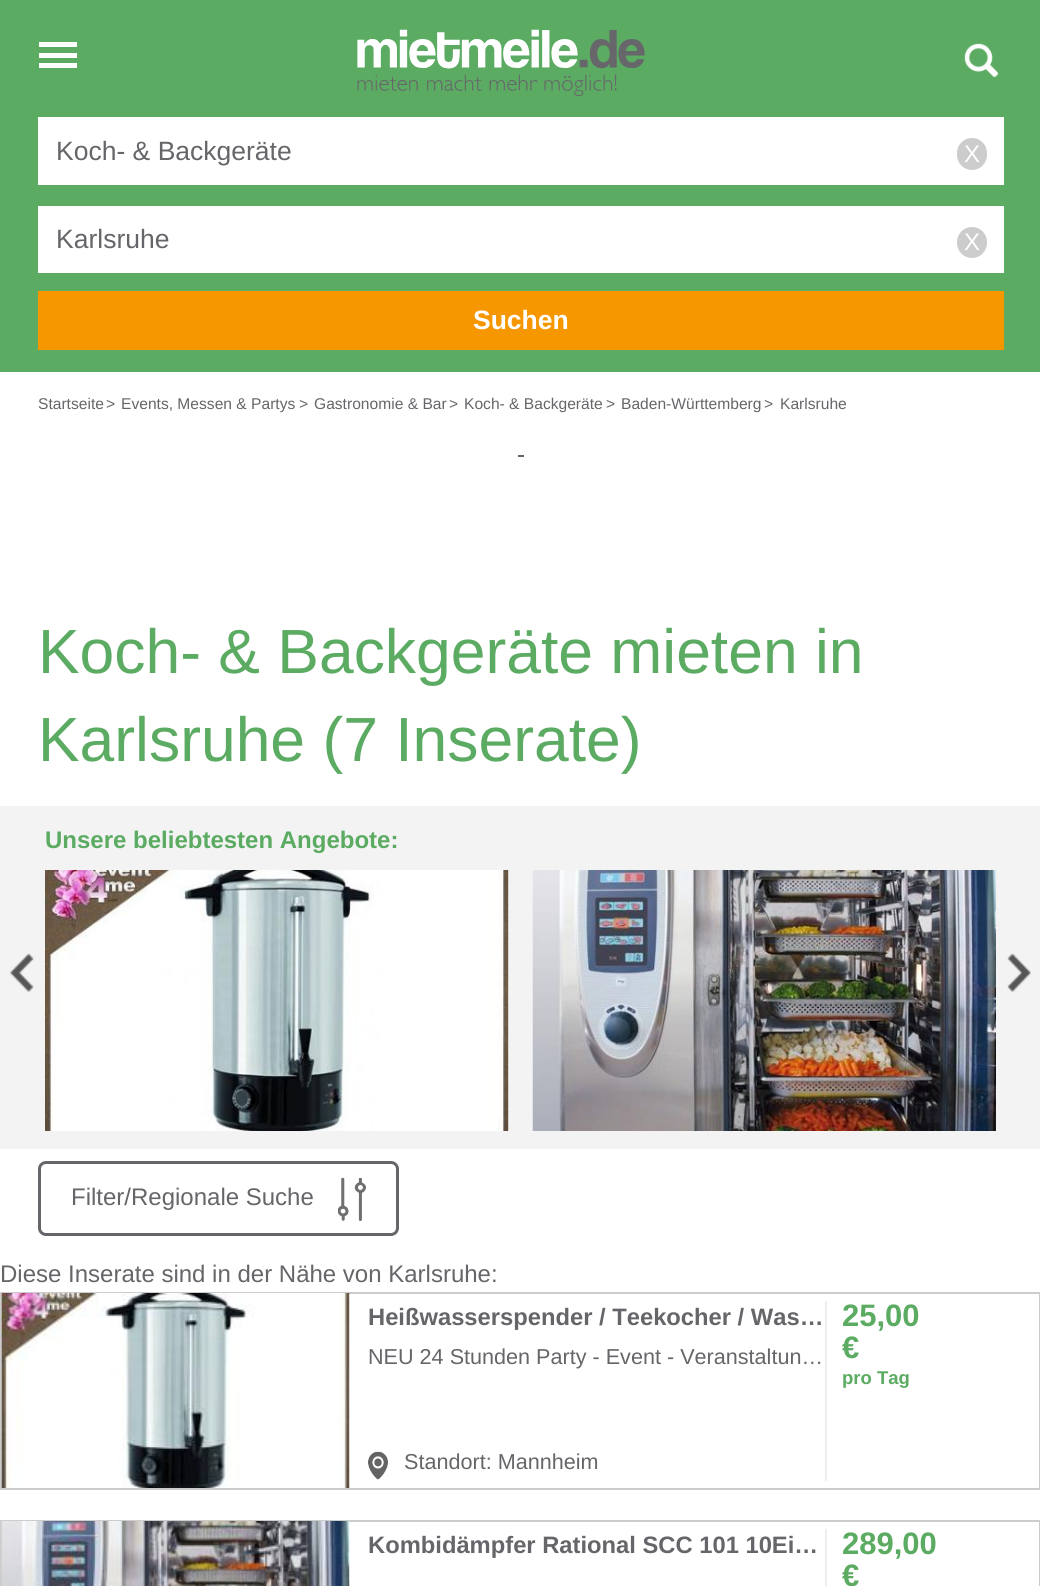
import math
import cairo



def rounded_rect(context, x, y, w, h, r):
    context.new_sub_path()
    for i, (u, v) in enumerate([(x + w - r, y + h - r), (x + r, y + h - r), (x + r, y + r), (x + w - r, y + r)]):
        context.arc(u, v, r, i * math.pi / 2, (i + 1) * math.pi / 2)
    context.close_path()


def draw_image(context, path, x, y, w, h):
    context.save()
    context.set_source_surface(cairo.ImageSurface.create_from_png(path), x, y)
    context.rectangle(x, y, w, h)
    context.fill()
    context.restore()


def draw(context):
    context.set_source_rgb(1, 1, 1)
    context.paint()
    context.set_source_rgb(91 / 255, 171 / 255, 98 / 255)
    context.rectangle(0, 0, 1040, 372)
    context.fill()
    context.set_source_rgb(1, 1, 1)
    context.rectangle(39, 42, 38, 5)
    context.fill()
    context.rectangle(39, 53, 38, 5)
    context.fill()
    context.rectangle(39, 63, 38, 5)
    context.fill()
    draw_image(context, "images/1.png", 357, 29, 288, 67)
    draw_image(context, "images/2.png", 964, 43, 35, 35)
    context.rectangle(38, 117, 966, 68)
    context.fill()
    context.set_source_rgb(204 / 255, 204 / 255, 204 / 255)
    rounded_rect(context, 957, 138, 30, 32, 15)
    context.fill()
    context.set_source_rgb(1, 1, 1)
    context.rectangle(38, 206, 966, 67)
    context.fill()
    context.set_source_rgb(204 / 255, 204 / 255, 204 / 255)
    rounded_rect(context, 957, 227, 30, 31, 15)
    context.fill()
    context.set_source_rgb(247 / 255, 151 / 255, 0)
    context.rectangle(38, 291, 966, 59)
    context.fill()
    context.set_source_rgb(102 / 255, 102 / 255, 106 / 255)
    context.rectangle(518, 455, 6, 2)
    context.fill()
    context.set_source_rgb(243 / 255, 243 / 255, 243 / 255)
    context.rectangle(0, 806, 1040, 343)
    context.fill()
    draw_image(context, "images/3.png", 10, 953, 24, 39)
    context.set_source_rgb(1, 1, 1)
    context.rectangle(508, 870, 1, 261)
    context.fill()
    draw_image(context, "images/4.png", 45, 870, 464, 261)
    draw_image(context, "images/5.png", 532, 870, 464, 261)
    draw_image(context, "images/6.png", 1007, 953, 24, 39)
    rounded_rect(context, 39.5, 1162.5, 358, 72, 6.5)
    context.set_source_rgb(102 / 255, 102 / 255, 106 / 255)
    context.set_line_width(3)
    context.stroke()
    draw_image(context, "images/7.png", 337, 1177, 29, 44)
    context.rectangle(1, 1293, 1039, 196)
    context.set_source_rgb(204 / 255, 204 / 255, 204 / 255)
    context.set_line_width(2)
    context.stroke()
    draw_image(context, "images/8.png", 1, 1293, 349, 195)
    draw_image(context, "images/9.png", 368, 1451, 20, 29)
    context.set_source_rgb(238 / 255, 238 / 255, 238 / 255)
    context.rectangle(825, 1301, 2, 180)
    context.fill()
    context.rectangle(1, 1521, 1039, 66)
    context.set_source_rgb(204 / 255, 204 / 255, 204 / 255)
    context.stroke()
    draw_image(context, "images/10.png", 1, 1521, 349, 65)
    context.set_source_rgb(238 / 255, 238 / 255, 238 / 255)
    context.rectangle(825, 1529, 2, 57)
    context.fill()
    context.select_font_face("Liberation Sans")
    context.set_font_size(26.5)
    context.set_source_rgb(102 / 255, 102 / 255, 106 / 255)
    context.move_to(56, 160)
    context.show_text("Koch- & Backgeräte")
    context.set_font_size(24)
    context.set_source_rgb(1, 1, 1)
    context.move_to(964, 162)
    context.show_text("X")
    context.set_font_size(26.5)
    context.set_source_rgb(102 / 255, 102 / 255, 106 / 255)
    context.move_to(56, 248)
    context.show_text("Karlsruhe")
    context.set_font_size(24)
    context.set_source_rgb(1, 1, 1)
    context.move_to(964, 250)
    context.show_text("X")
    context.select_font_face("Liberation Sans", cairo.FontSlant.NORMAL, cairo.FontWeight.BOLD)
    context.set_font_size(26.5)
    context.move_to(473, 329)
    context.show_text("Suchen")
    context.select_font_face("Liberation Sans")
    context.set_font_size(15.6)
    context.set_source_rgb(102 / 255, 102 / 255, 106 / 255)
    context.move_to(38, 409)
    context.show_text("Startseite")
    context.move_to(106, 409)
    context.show_text(">")
    context.move_to(121, 409)
    context.show_text("Events, Messen & Partys")
    context.move_to(299, 409)
    context.show_text(">")
    context.move_to(314, 409)
    context.show_text("Gastronomie & Bar")
    context.move_to(449, 409)
    context.show_text(">")
    context.move_to(464, 409)
    context.show_text("Koch- & Backgeräte")
    context.move_to(606, 409)
    context.show_text(">")
    context.move_to(621, 409)
    context.show_text("Baden-Württemberg")
    context.move_to(764, 409)
    context.show_text(">")
    context.move_to(780, 409)
    context.show_text("Karlsruhe")
    context.set_font_size(62.4)
    context.set_source_rgb(91 / 255, 171 / 255, 98 / 255)
    context.move_to(38, 673)
    context.show_text("Koch- & Backgeräte mieten in")
    context.move_to(38, 761)
    context.show_text("Karlsruhe (7 Inserate)")
    context.select_font_face("Liberation Sans", cairo.FontSlant.NORMAL, cairo.FontWeight.BOLD)
    context.set_font_size(24)
    context.move_to(45, 848)
    context.show_text("Unsere beliebtesten Angebote:")
    context.select_font_face("Liberation Sans")
    context.set_source_rgb(102 / 255, 102 / 255, 106 / 255)
    context.move_to(71, 1205)
    context.show_text("Filter/Regionale Suche")
    context.move_to(0, 1282)
    context.show_text("Diese Inserate sind in der Nähe von Karlsruhe:")
    context.select_font_face("Liberation Sans", cairo.FontSlant.NORMAL, cairo.FontWeight.BOLD)
    context.set_font_size(23.75)
    context.move_to(368, 1325)
    context.show_text("Heißwasserspender / Teekocher / Was…")
    context.select_font_face("Liberation Sans")
    context.set_font_size(21.6)
    context.move_to(368, 1364)
    context.show_text("NEU 24 Stunden Party - Event - Veranstaltun…")
    context.move_to(404, 1469)
    context.show_text("Standort: Mannheim")
    context.select_font_face("Liberation Sans", cairo.FontSlant.NORMAL, cairo.FontWeight.BOLD)
    context.set_font_size(31)
    context.set_source_rgb(91 / 255, 171 / 255, 98 / 255)
    context.move_to(842, 1326)
    context.show_text("25,00")
    context.move_to(842, 1358)
    context.show_text("€")
    context.set_font_size(18.5)
    context.move_to(842, 1384)
    context.show_text("pro Tag")
    context.set_font_size(23.75)
    context.set_source_rgb(102 / 255, 102 / 255, 106 / 255)
    context.move_to(368, 1553)
    context.show_text("Kombidämpfer Rational SCC 101 10Ei…")
    context.set_font_size(31)
    context.set_source_rgb(91 / 255, 171 / 255, 98 / 255)
    context.move_to(842, 1554)
    context.show_text("289,00")
    context.move_to(842, 1586)
    context.show_text("€")


surface = cairo.ImageSurface(cairo.Format.RGB24, 1040, 1586)
context = cairo.Context(surface)
options = cairo.FontOptions()
options.set_hint_metrics(cairo.HintMetrics.OFF)
options.set_hint_style(cairo.HintStyle.NONE)
context.set_font_options(options)
context.set_miter_limit(4)
draw(context)
surface.write_to_png("out.png")
